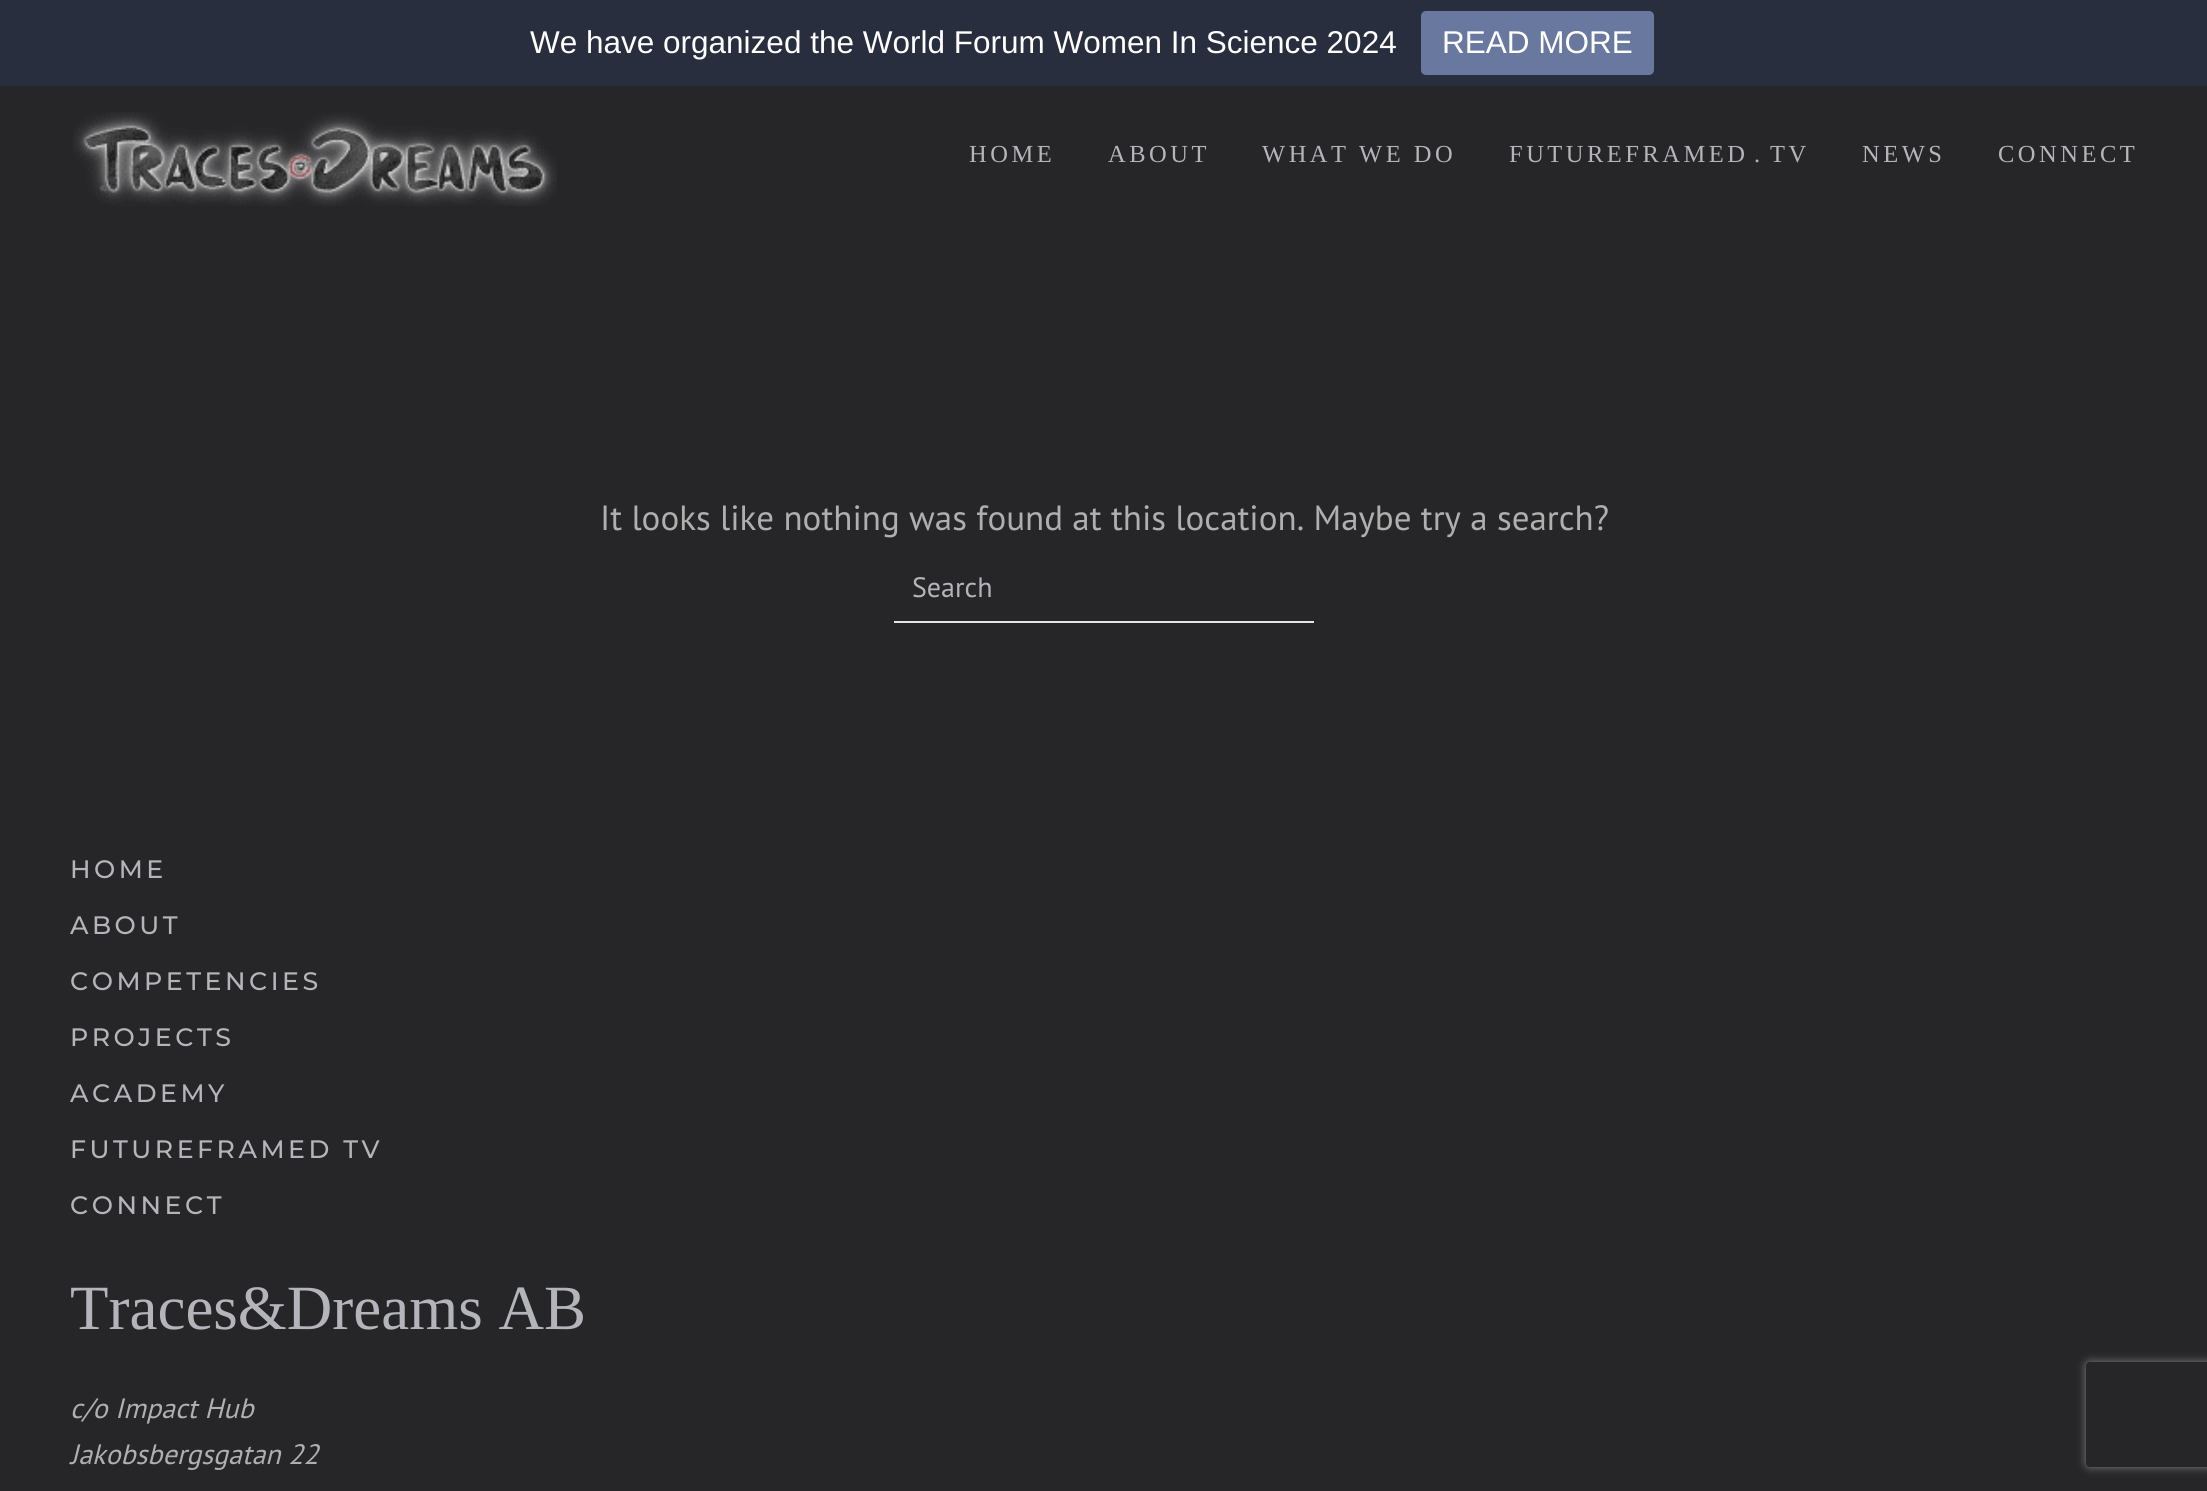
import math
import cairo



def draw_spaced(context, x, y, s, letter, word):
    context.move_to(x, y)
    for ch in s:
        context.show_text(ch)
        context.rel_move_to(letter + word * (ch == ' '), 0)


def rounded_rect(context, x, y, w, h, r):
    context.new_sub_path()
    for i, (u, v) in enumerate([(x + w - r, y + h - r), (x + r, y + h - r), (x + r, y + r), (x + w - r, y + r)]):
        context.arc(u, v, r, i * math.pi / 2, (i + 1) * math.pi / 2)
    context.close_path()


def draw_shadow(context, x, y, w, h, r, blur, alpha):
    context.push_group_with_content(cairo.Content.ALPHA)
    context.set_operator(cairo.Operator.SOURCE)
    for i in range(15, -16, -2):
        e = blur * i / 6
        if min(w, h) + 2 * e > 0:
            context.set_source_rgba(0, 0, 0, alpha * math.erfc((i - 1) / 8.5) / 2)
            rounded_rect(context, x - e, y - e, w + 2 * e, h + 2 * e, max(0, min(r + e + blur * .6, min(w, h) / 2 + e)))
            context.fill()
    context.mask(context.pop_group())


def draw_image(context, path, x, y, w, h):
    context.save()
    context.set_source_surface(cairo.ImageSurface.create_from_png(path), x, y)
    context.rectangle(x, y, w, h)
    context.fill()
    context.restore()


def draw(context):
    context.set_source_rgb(38 / 255, 38 / 255, 40 / 255)
    context.paint()
    context.set_source_rgb(40 / 255, 46 / 255, 62 / 255)
    context.rectangle(0, 0, 2207, 86)
    context.fill()
    context.set_source_rgb(105 / 255, 120 / 255, 159 / 255)
    rounded_rect(context, 1421, 11, 233, 64, 5)
    context.fill()
    draw_image(context, "images/1.png", 73, 112, 484, 94)
    context.set_source_rgb(229 / 255, 229 / 255, 231 / 255)
    context.rectangle(894, 621, 420, 2)
    context.fill()
    context.save()
    context.set_fill_rule(cairo.FillRule.EVEN_ODD)
    context.new_path()
    context.move_to(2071, 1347)
    context.line_to(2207, 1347)
    context.line_to(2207, 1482)
    context.line_to(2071, 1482)
    context.close_path()
    context.move_to(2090, 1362)
    context.line_to(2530, 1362)
    context.curve_to(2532, 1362, 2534, 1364, 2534, 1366)
    context.line_to(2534, 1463)
    context.curve_to(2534, 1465, 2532, 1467, 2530, 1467)
    context.line_to(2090, 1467)
    context.curve_to(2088, 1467, 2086, 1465, 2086, 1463)
    context.line_to(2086, 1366)
    context.curve_to(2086, 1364, 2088, 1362, 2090, 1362)
    context.close_path()
    context.clip()
    context.set_source_rgb(128 / 255, 128 / 255, 128 / 255)
    draw_shadow(context, 2086, 1362, 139, 105, 4, 4.5, 1)
    context.restore()
    context.select_font_face("Liberation Sans")
    context.set_font_size(31.5)
    context.set_source_rgb(1, 1, 1)
    context.move_to(530, 53)
    context.show_text("We have organized the World Forum Women In Science 2024")
    context.move_to(1442, 53)
    context.show_text("READ MORE")
    context.select_font_face("Liberation Serif")
    context.set_font_size(24.5)
    context.set_source_rgb(180 / 255, 181 / 255, 186 / 255)
    draw_spaced(context, 969, 162, "HOME", 3.5, 0)
    draw_spaced(context, 1108, 162, "ABOUT", 3.5, 0)
    draw_spaced(context, 1262, 162, "WHAT WE DO", 3.5, 0)
    draw_spaced(context, 1509, 162, "FUTUREFRAMED", 3.5, 0)
    draw_spaced(context, 1754, 162, ".", 3.5, 0)
    draw_spaced(context, 1770, 162, "TV", 3.5, 0)
    draw_spaced(context, 1862, 162, "NEWS", 3.5, 0)
    draw_spaced(context, 1998, 162, "CONNECT", 3.5, 0)
    context.select_font_face("PT Sans")
    context.set_font_size(35)
    context.set_source_rgb(175 / 255, 175 / 255, 175 / 255)
    context.move_to(600, 530)
    context.show_text("It looks like nothing was found at this location. Maybe try a search?")
    context.set_font_size(28)
    context.set_source_rgb(180 / 255, 181 / 255, 186 / 255)
    context.move_to(912, 597)
    context.show_text("Search")
    context.select_font_face("Montserrat Thin")
    context.set_font_size(25.25)
    draw_spaced(context, 70, 878, "HOME", 3.5, 0)
    draw_spaced(context, 70, 934, "ABOUT", 3.5, 0)
    draw_spaced(context, 70, 990, "COMPETENCIES", 3.5, 0)
    draw_spaced(context, 70, 1046, "PROJECTS", 3.5, 0)
    draw_spaced(context, 70, 1102, "ACADEMY", 3.5, 0)
    draw_spaced(context, 70, 1158, "FUTUREFRAMED TV", 3.5, 0)
    draw_spaced(context, 70, 1214, "CONNECT", 3.5, 0)
    context.select_font_face("Liberation Serif")
    context.set_font_size(63)
    context.move_to(70, 1329)
    context.show_text("Traces&Dreams AB")
    context.select_font_face("PT Sans", cairo.FontSlant.ITALIC)
    context.set_font_size(28)
    context.set_source_rgb(175 / 255, 175 / 255, 175 / 255)
    context.move_to(70, 1418)
    context.show_text("c/o Impact Hub")
    context.move_to(70, 1464)
    context.show_text("Jakobsbergsgatan 22")


surface = cairo.ImageSurface(cairo.Format.RGB24, 2207, 1491)
context = cairo.Context(surface)
options = cairo.FontOptions()
options.set_hint_metrics(cairo.HintMetrics.OFF)
options.set_hint_style(cairo.HintStyle.NONE)
context.set_font_options(options)
context.set_miter_limit(4)
draw(context)
surface.write_to_png("out.png")
